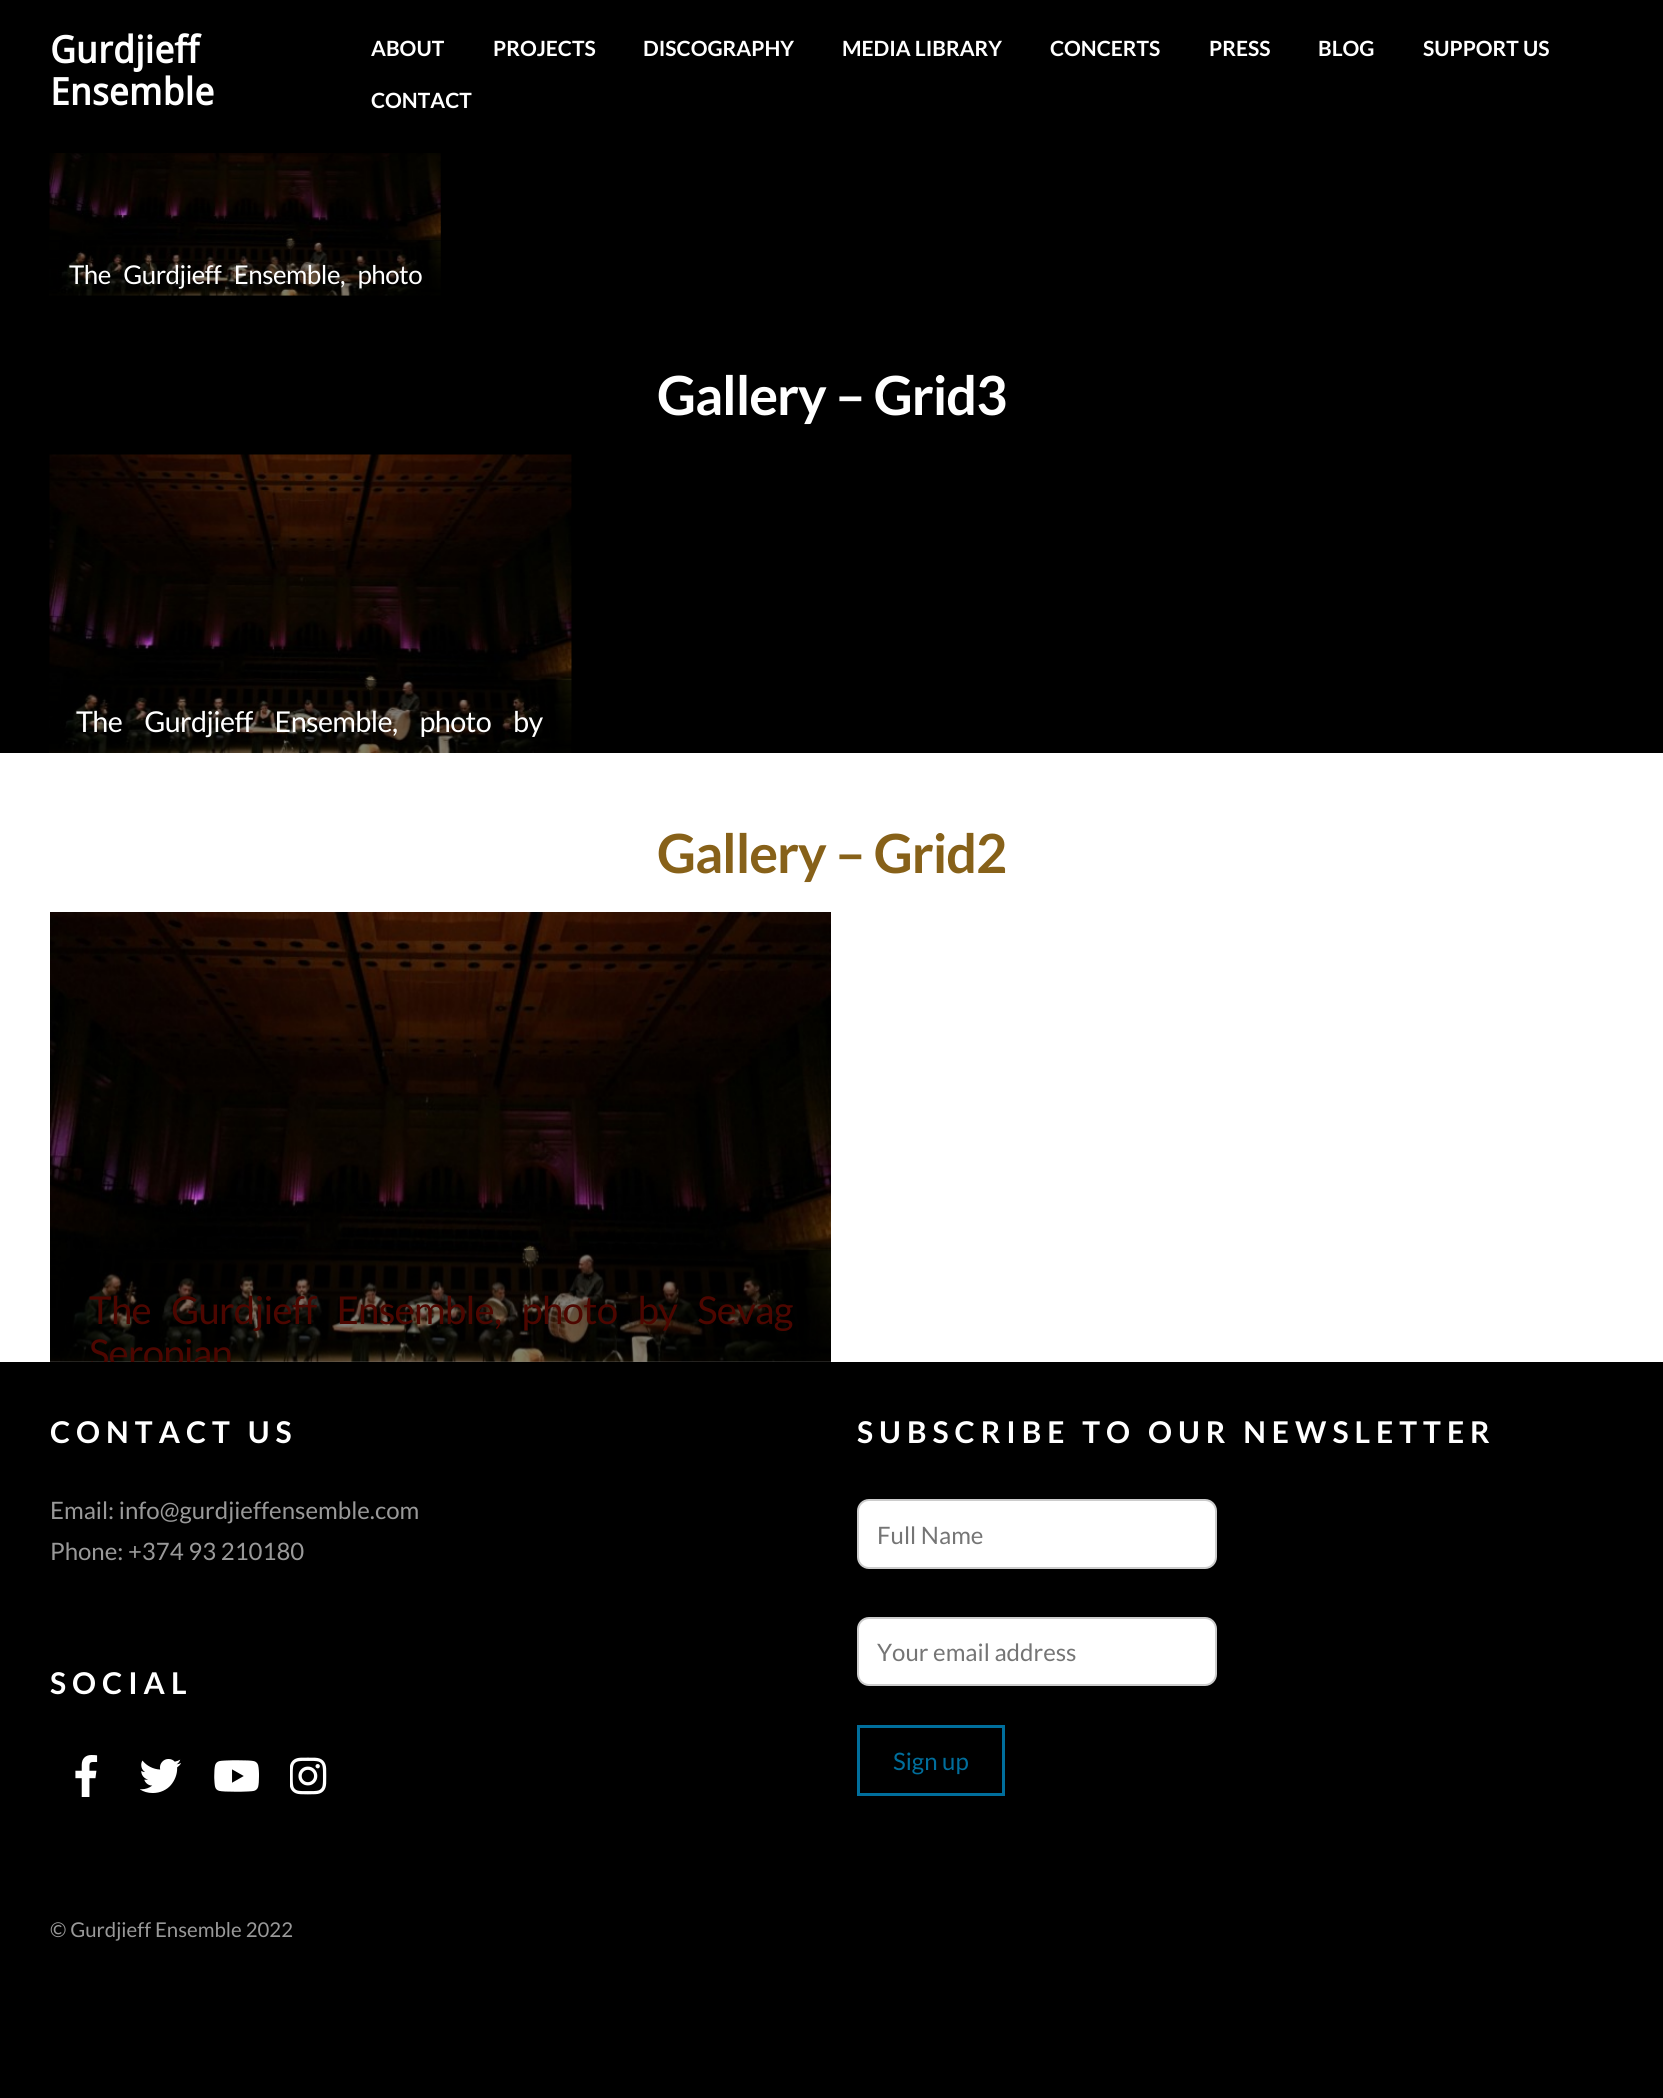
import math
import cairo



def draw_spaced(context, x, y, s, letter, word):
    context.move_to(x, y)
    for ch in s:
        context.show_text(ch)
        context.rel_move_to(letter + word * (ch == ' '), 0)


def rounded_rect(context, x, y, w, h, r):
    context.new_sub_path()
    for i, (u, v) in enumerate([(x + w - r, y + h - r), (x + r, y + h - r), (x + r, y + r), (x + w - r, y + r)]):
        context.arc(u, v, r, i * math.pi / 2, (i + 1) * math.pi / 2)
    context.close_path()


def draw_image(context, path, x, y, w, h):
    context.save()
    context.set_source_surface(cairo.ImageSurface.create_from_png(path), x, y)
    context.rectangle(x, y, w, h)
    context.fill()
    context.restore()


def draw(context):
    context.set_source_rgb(1, 1, 1)
    context.paint()
    context.set_source_rgb(0, 0, 0)
    context.rectangle(0, 0, 1663, 753)
    context.fill()
    draw_image(context, "images/1.png", 49, 153, 392, 143)
    context.set_source_rgba(0, 0, 0, 0.5)
    context.rectangle(50, 240, 391, 56)
    context.fill()
    draw_image(context, "images/2.png", 49, 454, 523, 299)
    context.rectangle(50, 680, 522, 73)
    context.fill()
    draw_image(context, "images/3.png", 50, 912, 781, 450)
    context.rectangle(50, 1250, 781, 112)
    context.fill()
    context.set_source_rgb(0, 0, 0)
    context.rectangle(0, 1362, 1663, 736)
    context.fill()
    draw_image(context, "images/4.png", 75, 1755, 23, 42)
    draw_image(context, "images/5.png", 140, 1759, 41, 34)
    draw_image(context, "images/6.png", 214, 1760, 45, 32)
    draw_image(context, "images/7.png", 290, 1757, 37, 38)
    context.set_source_rgb(1, 1, 1)
    rounded_rect(context, 858, 1500, 358, 68, 11)
    context.fill_preserve()
    context.set_source_rgb(204 / 255, 204 / 255, 204 / 255)
    context.stroke()
    context.set_source_rgb(1, 1, 1)
    rounded_rect(context, 858, 1618, 358, 67, 11)
    context.fill_preserve()
    context.set_source_rgb(204 / 255, 204 / 255, 204 / 255)
    context.stroke()
    context.rectangle(858.5, 1726.5, 145, 68)
    context.set_source_rgb(0, 110 / 255, 156 / 255)
    context.set_line_width(3)
    context.stroke()
    context.select_font_face("Droid Sans", cairo.FontSlant.NORMAL, cairo.FontWeight.BOLD)
    context.set_font_size(37.5)
    context.set_source_rgb(1, 1, 1)
    context.move_to(50, 63)
    context.show_text("Gurdjieff")
    context.move_to(50, 105)
    context.show_text("Ensemble")
    context.select_font_face("Lato", cairo.FontSlant.NORMAL, cairo.FontWeight.BOLD)
    context.set_font_size(21)
    context.move_to(371, 56)
    context.show_text("ABOUT")
    context.move_to(493, 56)
    context.show_text("PROJECTS")
    context.move_to(643, 56)
    context.show_text("DISCOGRAPHY")
    context.move_to(842, 56)
    context.show_text("MEDIA LIBRARY")
    context.move_to(1050, 56)
    context.show_text("CONCERTS")
    context.move_to(1209, 56)
    context.show_text("PRESS")
    context.move_to(1318, 56)
    context.show_text("BLOG")
    context.move_to(1423, 56)
    context.show_text("SUPPORT US")
    context.move_to(371, 108)
    context.show_text("CONTACT")
    context.select_font_face("Lato")
    context.set_font_size(25.9)
    draw_spaced(context, 69, 284, "The Gurdjieff Ensemble, photo", -0.5, 8)
    context.select_font_face("Lato", cairo.FontSlant.NORMAL, cairo.FontWeight.BOLD)
    context.set_font_size(54)
    draw_spaced(context, 657, 415, "Gallery – Grid3", -1.1, 0)
    context.select_font_face("Lato")
    context.set_font_size(28.75)
    draw_spaced(context, 76, 732, "The Gurdjieff Ensemble, photo by", -0.6, 17)
    context.select_font_face("Lato", cairo.FontSlant.NORMAL, cairo.FontWeight.BOLD)
    context.set_font_size(54)
    context.set_source_rgb(135 / 255, 97 / 255, 25 / 255)
    draw_spaced(context, 657, 873, "Gallery – Grid2", -1.1, 0)
    context.select_font_face("Lato")
    context.set_font_size(38.4)
    context.set_source_rgb(77 / 255, 6 / 255, 0)
    draw_spaced(context, 89, 1324, "The Gurdjieff Ensemble, photo by Sevag", -0.75, 13.5)
    context.save()
    context.rectangle(50, 1250, 781, 112)
    context.clip()
    draw_spaced(context, 89, 1367, "Seropian", -0.75, 0)
    context.restore()
    context.select_font_face("Lato", cairo.FontSlant.NORMAL, cairo.FontWeight.BOLD)
    context.set_font_size(30)
    context.set_source_rgb(1, 1, 1)
    draw_spaced(context, 50, 1443, "CONTACT US", 6, 0)
    context.select_font_face("Lato")
    context.set_font_size(24)
    context.set_source_rgb(153 / 255, 153 / 255, 153 / 255)
    context.move_to(50, 1519)
    context.show_text("Email: info@gurdjieffensemble.com")
    context.move_to(50, 1560)
    context.show_text("Phone: +374 93 210180")
    context.select_font_face("Lato", cairo.FontSlant.NORMAL, cairo.FontWeight.BOLD)
    context.set_font_size(30)
    context.set_source_rgb(1, 1, 1)
    draw_spaced(context, 50, 1694, "SOCIAL", 6, 0)
    draw_spaced(context, 857, 1443, "SUBSCRIBE TO OUR NEWSLETTER", 6, 0)
    context.select_font_face("Lato")
    context.set_font_size(24)
    context.set_source_rgb(117 / 255, 117 / 255, 117 / 255)
    context.move_to(877, 1544)
    context.show_text("Full Name")
    context.move_to(877, 1661)
    context.show_text("Your email address")
    context.set_source_rgb(0, 110 / 255, 156 / 255)
    context.move_to(893, 1770)
    context.show_text("Sign up")
    context.set_font_size(20.4)
    context.set_source_rgb(153 / 255, 153 / 255, 153 / 255)
    context.move_to(50, 1937)
    context.show_text("© Gurdjieff Ensemble 2022")


surface = cairo.ImageSurface(cairo.Format.RGB24, 1663, 2098)
context = cairo.Context(surface)
options = cairo.FontOptions()
options.set_hint_metrics(cairo.HintMetrics.OFF)
options.set_hint_style(cairo.HintStyle.NONE)
context.set_font_options(options)
context.set_miter_limit(4)
draw(context)
surface.write_to_png("out.png")
